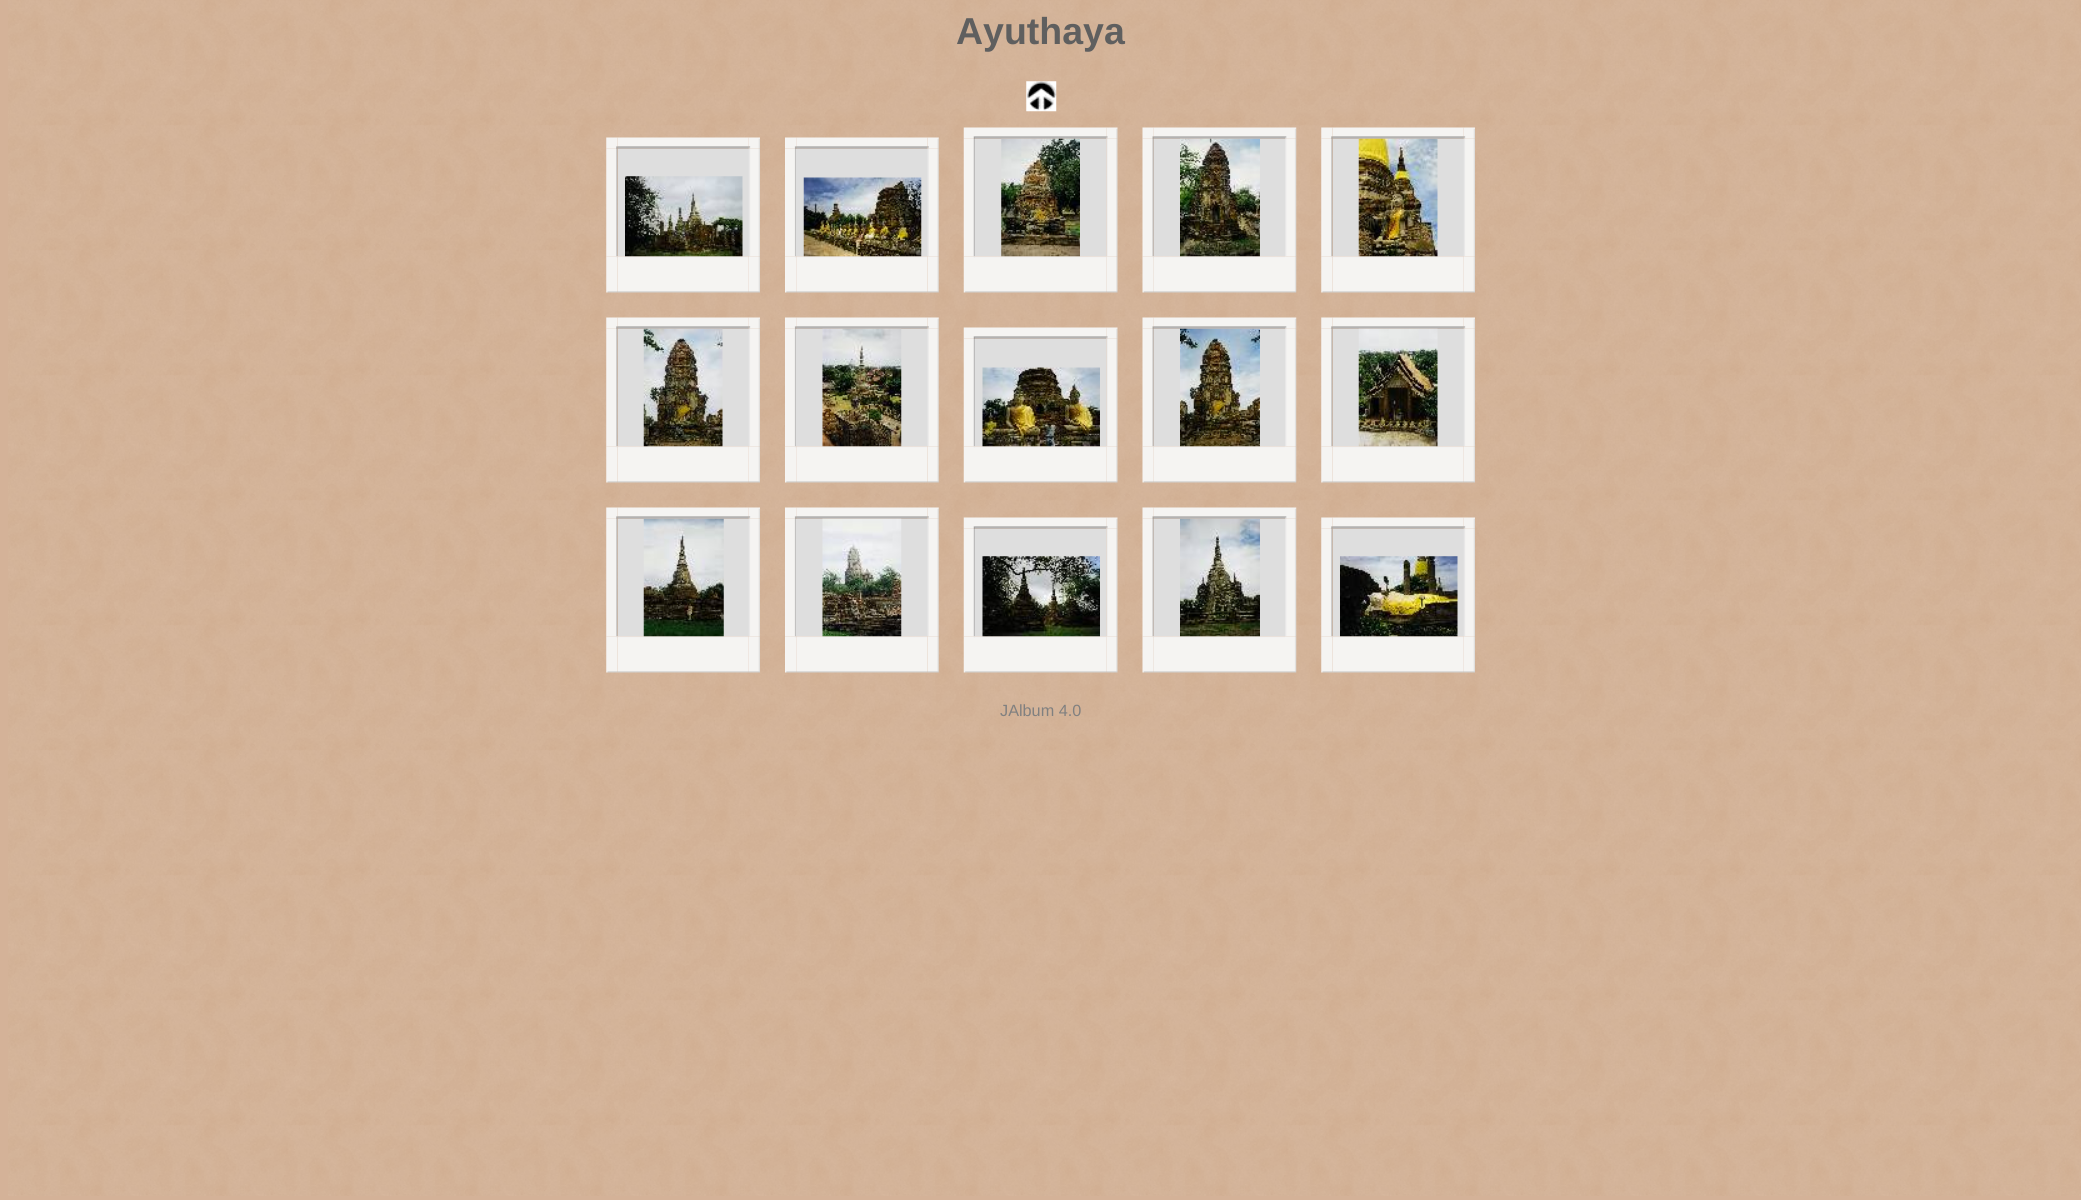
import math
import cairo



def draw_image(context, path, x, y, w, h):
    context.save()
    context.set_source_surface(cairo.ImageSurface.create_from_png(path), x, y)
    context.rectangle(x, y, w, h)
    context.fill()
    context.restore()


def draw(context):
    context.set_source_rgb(212 / 255, 178 / 255, 152 / 255)
    context.paint()
    draw_image(context, "images/1.png", 8, 0, 2073, 1196)
    draw_image(context, "images/2.png", 1026, 81, 31, 31)
    draw_image(context, "images/4.png", 617, 137, 132, 12)
    draw_image(context, "images/6.png", 606, 148, 12, 109)
    draw_image(context, "images/3.png", 606, 137, 12, 12)
    context.set_source_rgb(222 / 255, 222 / 255, 222 / 255)
    context.rectangle(618, 149, 131, 107)
    context.fill()
    draw_image(context, "images/8.png", 748, 148, 12, 109)
    draw_image(context, "images/5.png", 748, 137, 12, 12)
    draw_image(context, "images/10.png", 617, 256, 132, 37)
    draw_image(context, "images/7.png", 625, 176, 118, 81)
    draw_image(context, "images/9.png", 606, 256, 12, 37)
    draw_image(context, "images/11.png", 748, 256, 12, 37)
    draw_image(context, "images/13.png", 796, 137, 132, 12)
    draw_image(context, "images/15.png", 785, 148, 12, 109)
    draw_image(context, "images/12.png", 785, 137, 12, 12)
    context.rectangle(796, 149, 132, 107)
    context.fill()
    draw_image(context, "images/17.png", 927, 148, 12, 109)
    draw_image(context, "images/14.png", 927, 137, 12, 12)
    draw_image(context, "images/19.png", 796, 256, 132, 37)
    draw_image(context, "images/16.png", 803, 177, 119, 80)
    draw_image(context, "images/18.png", 785, 256, 12, 37)
    draw_image(context, "images/20.png", 927, 256, 12, 37)
    draw_image(context, "images/24.png", 963, 138, 12, 119)
    draw_image(context, "images/21.png", 963, 127, 12, 12)
    draw_image(context, "images/22.png", 975, 127, 132, 12)
    draw_image(context, "images/26.png", 1106, 138, 12, 119)
    draw_image(context, "images/23.png", 1106, 127, 12, 12)
    context.rectangle(975, 139, 131, 117)
    context.fill()
    draw_image(context, "images/28.png", 975, 256, 132, 37)
    draw_image(context, "images/25.png", 1001, 138, 79, 119)
    draw_image(context, "images/27.png", 963, 256, 12, 37)
    draw_image(context, "images/29.png", 1106, 256, 12, 37)
    draw_image(context, "images/31.png", 1153, 127, 132, 12)
    draw_image(context, "images/33.png", 1142, 138, 12, 119)
    draw_image(context, "images/30.png", 1142, 127, 12, 12)
    draw_image(context, "images/35.png", 1285, 138, 12, 119)
    draw_image(context, "images/32.png", 1285, 127, 12, 12)
    context.rectangle(1154, 139, 131, 117)
    context.fill()
    draw_image(context, "images/37.png", 1153, 256, 132, 37)
    draw_image(context, "images/34.png", 1180, 138, 80, 119)
    draw_image(context, "images/36.png", 1142, 256, 12, 37)
    draw_image(context, "images/38.png", 1285, 256, 12, 37)
    draw_image(context, "images/40.png", 1332, 127, 132, 12)
    draw_image(context, "images/42.png", 1321, 138, 12, 119)
    draw_image(context, "images/39.png", 1321, 127, 12, 12)
    context.rectangle(1333, 139, 131, 117)
    context.fill()
    draw_image(context, "images/44.png", 1463, 138, 12, 119)
    draw_image(context, "images/41.png", 1463, 127, 12, 12)
    draw_image(context, "images/46.png", 1332, 256, 132, 37)
    draw_image(context, "images/43.png", 1358, 138, 80, 119)
    draw_image(context, "images/45.png", 1321, 256, 12, 37)
    draw_image(context, "images/47.png", 1463, 256, 12, 37)
    draw_image(context, "images/49.png", 617, 317, 132, 12)
    draw_image(context, "images/51.png", 606, 328, 12, 119)
    draw_image(context, "images/48.png", 606, 317, 12, 12)
    context.rectangle(618, 329, 131, 117)
    context.fill()
    draw_image(context, "images/53.png", 748, 328, 12, 119)
    draw_image(context, "images/50.png", 748, 317, 12, 12)
    draw_image(context, "images/55.png", 617, 446, 132, 37)
    draw_image(context, "images/52.png", 643, 328, 80, 119)
    draw_image(context, "images/54.png", 606, 446, 12, 37)
    draw_image(context, "images/56.png", 748, 446, 12, 37)
    draw_image(context, "images/58.png", 796, 317, 132, 12)
    draw_image(context, "images/60.png", 785, 328, 12, 119)
    draw_image(context, "images/57.png", 785, 317, 12, 12)
    context.rectangle(796, 329, 132, 117)
    context.fill()
    draw_image(context, "images/62.png", 927, 328, 12, 119)
    draw_image(context, "images/59.png", 927, 317, 12, 12)
    draw_image(context, "images/64.png", 796, 446, 132, 37)
    draw_image(context, "images/61.png", 822, 328, 80, 119)
    draw_image(context, "images/63.png", 785, 446, 12, 37)
    draw_image(context, "images/65.png", 927, 446, 12, 37)
    draw_image(context, "images/69.png", 963, 338, 12, 109)
    draw_image(context, "images/66.png", 963, 327, 12, 12)
    draw_image(context, "images/67.png", 975, 327, 132, 12)
    draw_image(context, "images/71.png", 1106, 338, 12, 109)
    draw_image(context, "images/68.png", 1106, 327, 12, 12)
    context.rectangle(975, 339, 131, 107)
    context.fill()
    draw_image(context, "images/73.png", 975, 446, 132, 37)
    draw_image(context, "images/70.png", 982, 367, 118, 80)
    draw_image(context, "images/72.png", 963, 446, 12, 37)
    draw_image(context, "images/74.png", 1106, 446, 12, 37)
    draw_image(context, "images/76.png", 1153, 317, 132, 12)
    draw_image(context, "images/78.png", 1142, 328, 12, 119)
    draw_image(context, "images/75.png", 1142, 317, 12, 12)
    draw_image(context, "images/80.png", 1285, 328, 12, 119)
    draw_image(context, "images/77.png", 1285, 317, 12, 12)
    context.rectangle(1154, 329, 131, 117)
    context.fill()
    draw_image(context, "images/82.png", 1153, 446, 132, 37)
    draw_image(context, "images/79.png", 1180, 328, 80, 119)
    draw_image(context, "images/81.png", 1142, 446, 12, 37)
    draw_image(context, "images/83.png", 1285, 446, 12, 37)
    draw_image(context, "images/85.png", 1332, 317, 132, 12)
    draw_image(context, "images/87.png", 1321, 328, 12, 119)
    draw_image(context, "images/84.png", 1321, 317, 12, 12)
    context.rectangle(1333, 329, 131, 117)
    context.fill()
    draw_image(context, "images/89.png", 1463, 328, 12, 119)
    draw_image(context, "images/86.png", 1463, 317, 12, 12)
    draw_image(context, "images/91.png", 1332, 446, 132, 37)
    draw_image(context, "images/88.png", 1358, 328, 80, 119)
    draw_image(context, "images/90.png", 1321, 446, 12, 37)
    draw_image(context, "images/92.png", 1463, 446, 12, 37)
    draw_image(context, "images/94.png", 617, 507, 132, 12)
    draw_image(context, "images/96.png", 606, 518, 12, 119)
    draw_image(context, "images/93.png", 606, 507, 12, 12)
    context.rectangle(618, 519, 131, 117)
    context.fill()
    draw_image(context, "images/98.png", 748, 518, 12, 119)
    draw_image(context, "images/95.png", 748, 507, 12, 12)
    draw_image(context, "images/100.png", 617, 636, 132, 37)
    draw_image(context, "images/97.png", 643, 518, 81, 119)
    draw_image(context, "images/99.png", 606, 636, 12, 37)
    draw_image(context, "images/101.png", 748, 636, 12, 37)
    draw_image(context, "images/103.png", 796, 507, 132, 12)
    draw_image(context, "images/105.png", 785, 518, 12, 119)
    draw_image(context, "images/102.png", 785, 507, 12, 12)
    context.rectangle(796, 519, 132, 117)
    context.fill()
    draw_image(context, "images/107.png", 927, 518, 12, 119)
    draw_image(context, "images/104.png", 927, 507, 12, 12)
    draw_image(context, "images/109.png", 796, 636, 132, 37)
    draw_image(context, "images/106.png", 822, 518, 80, 119)
    draw_image(context, "images/108.png", 785, 636, 12, 37)
    draw_image(context, "images/110.png", 927, 636, 12, 37)
    draw_image(context, "images/114.png", 963, 528, 12, 109)
    draw_image(context, "images/111.png", 963, 517, 12, 12)
    draw_image(context, "images/112.png", 975, 517, 132, 12)
    draw_image(context, "images/116.png", 1106, 528, 12, 109)
    draw_image(context, "images/113.png", 1106, 517, 12, 12)
    context.rectangle(975, 529, 131, 107)
    context.fill()
    draw_image(context, "images/118.png", 975, 636, 132, 37)
    draw_image(context, "images/115.png", 982, 556, 118, 81)
    draw_image(context, "images/117.png", 963, 636, 12, 37)
    draw_image(context, "images/119.png", 1106, 636, 12, 37)
    draw_image(context, "images/121.png", 1153, 507, 132, 12)
    draw_image(context, "images/123.png", 1142, 518, 12, 119)
    draw_image(context, "images/120.png", 1142, 507, 12, 12)
    draw_image(context, "images/125.png", 1285, 518, 12, 119)
    draw_image(context, "images/122.png", 1285, 507, 12, 12)
    context.rectangle(1154, 519, 131, 117)
    context.fill()
    draw_image(context, "images/127.png", 1153, 636, 132, 37)
    draw_image(context, "images/124.png", 1180, 518, 80, 119)
    draw_image(context, "images/126.png", 1142, 636, 12, 37)
    draw_image(context, "images/128.png", 1285, 636, 12, 37)
    draw_image(context, "images/130.png", 1332, 517, 132, 12)
    draw_image(context, "images/132.png", 1321, 528, 12, 109)
    draw_image(context, "images/129.png", 1321, 517, 12, 12)
    context.rectangle(1333, 529, 131, 107)
    context.fill()
    draw_image(context, "images/134.png", 1463, 528, 12, 109)
    draw_image(context, "images/131.png", 1463, 517, 12, 12)
    draw_image(context, "images/136.png", 1332, 636, 132, 37)
    draw_image(context, "images/133.png", 1340, 556, 118, 81)
    draw_image(context, "images/135.png", 1321, 636, 12, 37)
    draw_image(context, "images/137.png", 1463, 636, 12, 37)
    context.select_font_face("Liberation Sans", cairo.FontSlant.NORMAL, cairo.FontWeight.BOLD)
    context.set_font_size(37.5)
    context.set_source_rgb(95 / 255, 95 / 255, 95 / 255)
    context.move_to(956, 44)
    context.show_text("Ayuthaya")
    context.select_font_face("Liberation Sans")
    context.set_font_size(16.25)
    context.set_source_rgb(128 / 255, 128 / 255, 128 / 255)
    context.move_to(1000, 716)
    context.show_text("JAlbum 4.0")


surface = cairo.ImageSurface(cairo.Format.RGB24, 2081, 1200)
context = cairo.Context(surface)
options = cairo.FontOptions()
options.set_hint_metrics(cairo.HintMetrics.OFF)
options.set_hint_style(cairo.HintStyle.NONE)
context.set_font_options(options)
context.set_miter_limit(4)
draw(context)
surface.write_to_png("out.png")
